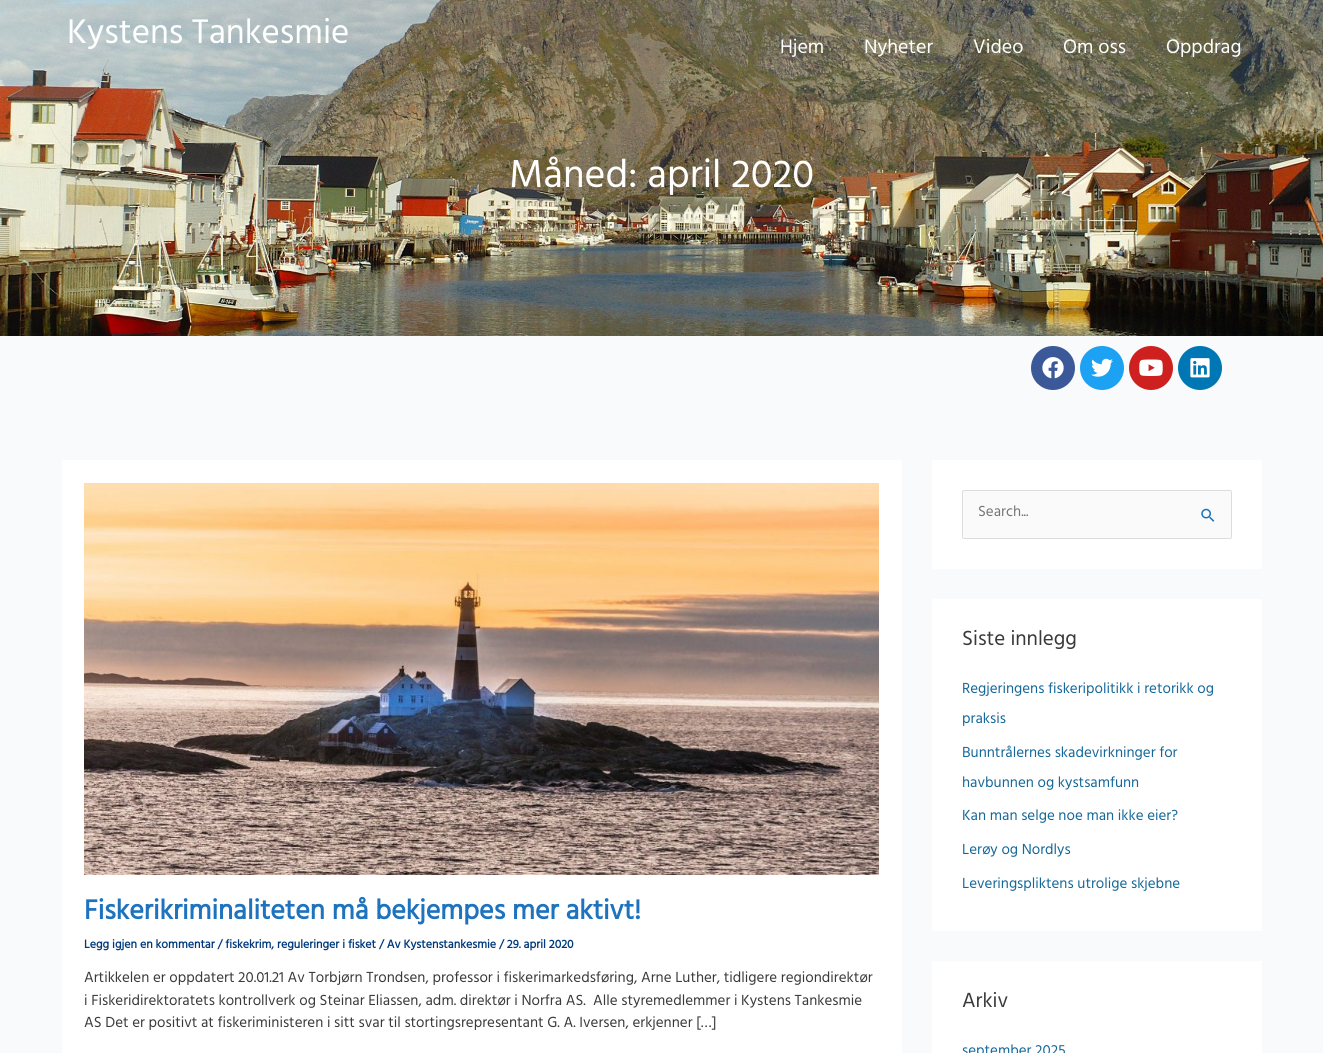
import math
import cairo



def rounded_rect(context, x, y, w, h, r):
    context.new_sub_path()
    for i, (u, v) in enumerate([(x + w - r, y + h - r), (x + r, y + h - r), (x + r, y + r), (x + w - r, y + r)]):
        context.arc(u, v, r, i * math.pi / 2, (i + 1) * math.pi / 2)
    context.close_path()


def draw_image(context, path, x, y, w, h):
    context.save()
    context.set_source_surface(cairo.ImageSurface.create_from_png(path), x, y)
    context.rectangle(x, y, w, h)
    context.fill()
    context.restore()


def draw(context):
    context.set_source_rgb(249 / 255, 250 / 255, 252 / 255)
    context.paint()
    draw_image(context, "images/1.png", 0, 0, 1323, 336)
    context.set_source_rgb(59 / 255, 89 / 255, 152 / 255)
    context.arc(1053, 368, 22, 0, 2 * math.pi)
    context.fill()
    draw_image(context, "images/2.png", 1042, 357, 22, 22)
    context.set_source_rgb(29 / 255, 161 / 255, 242 / 255)
    context.arc(1102, 368, 22, 0, 2 * math.pi)
    context.fill()
    draw_image(context, "images/3.png", 1091, 358, 22, 19)
    context.set_source_rgb(205 / 255, 32 / 255, 31 / 255)
    context.arc(1151, 368, 22, 0, 2 * math.pi)
    context.fill()
    draw_image(context, "images/4.png", 1139, 359, 24, 17)
    context.set_source_rgb(0, 119 / 255, 181 / 255)
    context.arc(1200, 368, 22, 0, 2 * math.pi)
    context.fill()
    draw_image(context, "images/5.png", 1190, 358, 20, 20)
    context.set_source_rgb(1, 1, 1)
    context.rectangle(62, 460, 840, 593)
    context.fill()
    draw_image(context, "images/6.png", 84, 483, 795, 392)
    context.rectangle(932, 460, 330, 109)
    context.fill()
    context.set_source_rgb(250 / 255, 250 / 255, 250 / 255)
    rounded_rect(context, 962.5, 490.5, 269, 48, 1.5)
    context.fill_preserve()
    context.set_source_rgb(221 / 255, 221 / 255, 221 / 255)
    context.set_line_width(1)
    context.stroke()
    draw_image(context, "images/7.png", 1201, 508, 14, 14)
    context.set_source_rgb(1, 1, 1)
    context.rectangle(932, 599, 330, 332)
    context.fill()
    context.rectangle(932, 961, 330, 92)
    context.fill()
    context.select_font_face("Hind Guntur")
    context.set_font_size(35)
    context.move_to(67, 43)
    context.show_text("Kystens Tankesmie")
    context.set_font_size(20)
    context.move_to(780, 53)
    context.show_text("Hjem")
    context.move_to(864, 53)
    context.show_text("Nyheter")
    context.move_to(973, 53)
    context.show_text("Video")
    context.move_to(1063, 53)
    context.show_text("Om oss")
    context.move_to(1166, 53)
    context.show_text("Oppdrag")
    context.set_font_size(40)
    context.move_to(509, 187)
    context.show_text("Måned: april 2020")
    context.select_font_face("Hind Guntur", cairo.FontSlant.NORMAL, cairo.FontWeight.BOLD)
    context.set_font_size(28)
    context.set_source_rgb(30 / 255, 115 / 255, 190 / 255)
    context.move_to(84, 919)
    context.show_text("Fiskerikriminaliteten må bekjempes mer aktivt!")
    context.set_font_size(12)
    context.set_source_rgb(0, 58 / 255, 124 / 255)
    context.move_to(84, 948)
    context.show_text("Legg igjen en kommentar / fiskekrim, reguleringer i fisket / Av Kystenstankesmie / 29. april 2020")
    context.select_font_face("Hind Guntur")
    context.set_font_size(15)
    context.set_source_rgb(58 / 255, 58 / 255, 58 / 255)
    context.move_to(84, 982)
    context.show_text("Artikkelen er oppdatert 20.01.21 Av Torbjørn Trondsen, professor i fiskerimarkedsføring, Arne Luther, tidligere regiondirektør")
    context.move_to(84, 1005)
    context.show_text("i Fiskeridirektoratets kontrollverk og Steinar Eliassen, adm. direktør i Norfra AS.  Alle styremedlemmer i Kystens Tankesmie")
    context.move_to(84, 1027)
    context.show_text("AS Det er positivt at fiskeriministeren i sitt svar til stortingsrepresentant G. A. Iversen, erkjenner […]")
    context.set_source_rgb(117 / 255, 117 / 255, 117 / 255)
    context.move_to(978, 516)
    context.show_text("Search...")
    context.set_font_size(21)
    context.set_source_rgb(58 / 255, 58 / 255, 58 / 255)
    context.move_to(962, 645)
    context.show_text("Siste innlegg")
    context.set_font_size(15)
    context.set_source_rgb(21 / 255, 104 / 255, 153 / 255)
    context.move_to(962, 693)
    context.show_text("Regjeringens fiskeripolitikk i retorikk og")
    context.move_to(962, 723)
    context.show_text("praksis")
    context.move_to(962, 757)
    context.show_text("Bunntrålernes skadevirkninger for")
    context.move_to(962, 787)
    context.show_text("havbunnen og kystsamfunn")
    context.move_to(962, 820)
    context.show_text("Kan man selge noe man ikke eier?")
    context.move_to(962, 854)
    context.show_text("Lerøy og Nordlys")
    context.move_to(962, 888)
    context.show_text("Leveringspliktens utrolige skjebne")
    context.set_font_size(21)
    context.set_source_rgb(58 / 255, 58 / 255, 58 / 255)
    context.move_to(962, 1007)
    context.show_text("Arkiv")
    context.set_font_size(15)
    context.set_source_rgb(21 / 255, 104 / 255, 153 / 255)
    context.move_to(962, 1055)
    context.show_text("september 2025")


surface = cairo.ImageSurface(cairo.Format.RGB24, 1323, 1053)
context = cairo.Context(surface)
options = cairo.FontOptions()
options.set_hint_metrics(cairo.HintMetrics.OFF)
options.set_hint_style(cairo.HintStyle.NONE)
context.set_font_options(options)
context.set_miter_limit(4)
draw(context)
surface.write_to_png("out.png")
